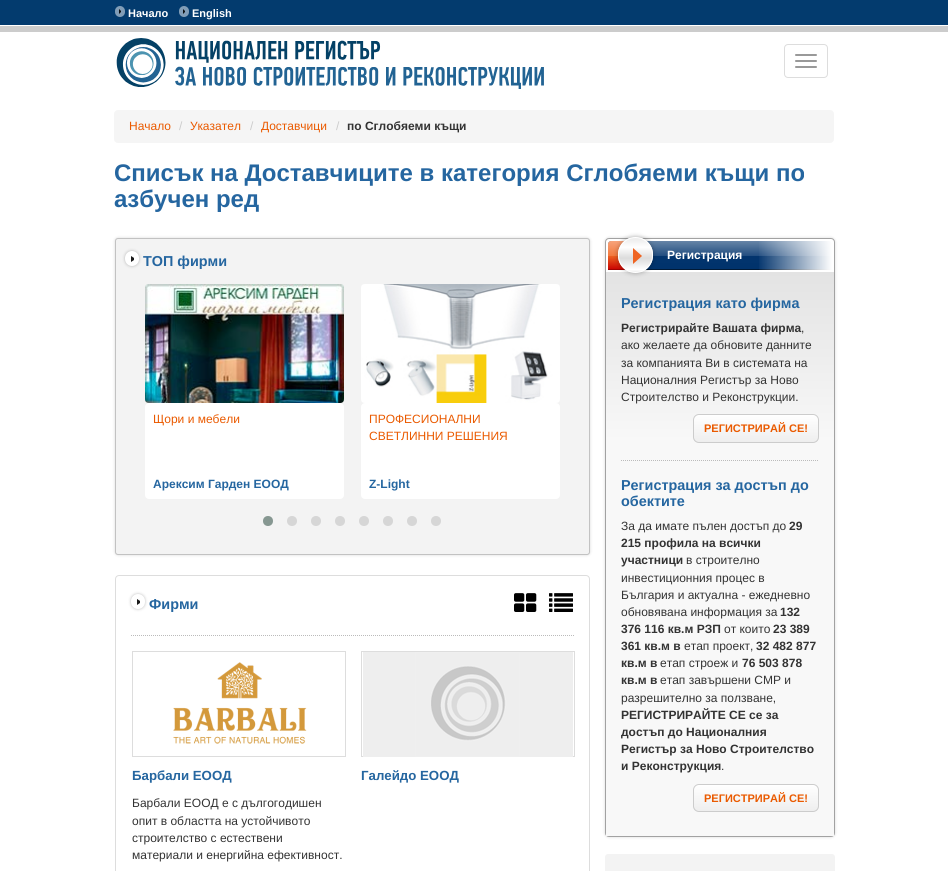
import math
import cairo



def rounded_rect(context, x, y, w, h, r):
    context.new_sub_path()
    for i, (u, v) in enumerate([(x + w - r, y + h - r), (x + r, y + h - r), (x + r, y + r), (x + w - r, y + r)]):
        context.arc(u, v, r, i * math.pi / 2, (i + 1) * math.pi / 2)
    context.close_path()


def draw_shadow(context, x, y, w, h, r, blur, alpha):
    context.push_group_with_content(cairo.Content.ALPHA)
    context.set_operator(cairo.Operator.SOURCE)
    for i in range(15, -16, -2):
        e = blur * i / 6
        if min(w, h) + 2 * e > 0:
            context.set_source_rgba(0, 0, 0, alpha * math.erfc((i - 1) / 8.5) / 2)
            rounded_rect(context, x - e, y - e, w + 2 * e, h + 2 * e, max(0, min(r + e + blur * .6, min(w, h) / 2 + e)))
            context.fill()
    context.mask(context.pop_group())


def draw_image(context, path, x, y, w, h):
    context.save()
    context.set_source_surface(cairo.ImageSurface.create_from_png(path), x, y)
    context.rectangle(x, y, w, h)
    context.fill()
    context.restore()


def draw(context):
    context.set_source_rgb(1, 1, 1)
    context.paint()
    context.set_source_rgb(3 / 255, 59 / 255, 110 / 255)
    context.rectangle(0, 0, 948, 25)
    context.fill()
    context.rectangle(-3, -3, 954, 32)
    context.set_source_rgb(204 / 255, 204 / 255, 204 / 255)
    context.set_line_width(6)
    context.stroke()
    context.set_source_rgb(129 / 255, 157 / 255, 183 / 255)
    rounded_rect(context, 115, 6, 10, 11, 5)
    context.fill()
    context.set_source_rgb(13 / 255, 16 / 255, 18 / 255)
    context.new_path()
    context.move_to(119, 14)
    context.line_to(119, 9)
    context.line_to(121, 11)
    context.line_to(121, 12)
    context.close_path()
    context.fill()
    context.set_source_rgb(129 / 255, 157 / 255, 183 / 255)
    rounded_rect(context, 179, 6, 10, 11, 5)
    context.fill()
    context.set_source_rgb(13 / 255, 16 / 255, 18 / 255)
    context.new_path()
    context.move_to(183, 14)
    context.line_to(183, 9)
    context.line_to(185, 11)
    context.line_to(185, 12)
    context.close_path()
    context.fill()
    draw_image(context, "images/1.png", 116, 38, 428, 51)
    rounded_rect(context, 784.5, 44.5, 43, 33, 3.5)
    context.set_source_rgb(221 / 255, 221 / 255, 221 / 255)
    context.set_line_width(1)
    context.stroke()
    context.set_source_rgb(153 / 255, 153 / 255, 153 / 255)
    rounded_rect(context, 795, 54, 22, 2, 1)
    context.fill()
    rounded_rect(context, 795, 60, 22, 2, 1)
    context.fill()
    rounded_rect(context, 795, 66, 22, 2, 1)
    context.fill()
    context.set_source_rgb(245 / 255, 245 / 255, 245 / 255)
    rounded_rect(context, 114, 110, 720, 33, 4)
    context.fill()
    context.set_source_rgb(0, 0, 0)
    draw_shadow(context, 115, 238, 475, 317, 3, 1.5, 0.15)
    context.set_source_rgb(243 / 255, 243 / 255, 243 / 255)
    rounded_rect(context, 115.5, 238.5, 474, 316, 2.5)
    context.fill_preserve()
    context.set_source_rgb(194 / 255, 194 / 255, 194 / 255)
    context.stroke()
    context.set_source_rgb(0, 0, 0)
    draw_shadow(context, 125, 251, 14, 15, 7, 1.5, 0.25)
    context.set_source_rgb(1, 1, 1)
    rounded_rect(context, 125, 251, 14, 15, 7)
    context.fill()
    context.set_source_rgb(26 / 255, 26 / 255, 26 / 255)
    context.new_path()
    context.move_to(131, 262)
    context.line_to(131, 256)
    context.line_to(134, 258)
    context.line_to(134, 260)
    context.close_path()
    context.fill()
    draw_image(context, "images/2.png", 145, 284, 199, 119)
    context.set_source_rgb(1, 1, 1)
    rounded_rect(context, 145, 403, 199, 96, 4)
    context.fill()
    draw_image(context, "images/3.png", 361, 284, 199, 119)
    rounded_rect(context, 361, 403, 199, 96, 4)
    context.fill()
    context.set_source_rgb(134 / 255, 151 / 255, 145 / 255)
    context.arc(268, 521, 5, 0, 2 * math.pi)
    context.fill()
    context.set_source_rgb(214 / 255, 214 / 255, 214 / 255)
    context.arc(292, 521, 5, 0, 2 * math.pi)
    context.fill()
    context.arc(316, 521, 5, 0, 2 * math.pi)
    context.fill()
    context.arc(340, 521, 5, 0, 2 * math.pi)
    context.fill()
    context.arc(364, 521, 5, 0, 2 * math.pi)
    context.fill()
    context.arc(388, 521, 5, 0, 2 * math.pi)
    context.fill()
    context.arc(412, 521, 5, 0, 2 * math.pi)
    context.fill()
    context.arc(436, 521, 5, 0, 2 * math.pi)
    context.fill()
    rounded_rect(context, 115.5, 575.5, 474, 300, 3.5)
    context.set_source_rgb(221 / 255, 221 / 255, 221 / 255)
    context.stroke()
    context.set_source_rgb(0, 0, 0)
    draw_shadow(context, 131, 594, 14, 15, 7, 1.5, 0.25)
    context.set_source_rgb(1, 1, 1)
    rounded_rect(context, 131, 594, 14, 15, 7)
    context.fill()
    context.set_source_rgb(26 / 255, 26 / 255, 26 / 255)
    context.new_path()
    context.move_to(137, 605)
    context.line_to(137, 599)
    context.line_to(140, 601)
    context.line_to(140, 603)
    context.close_path()
    context.fill()
    draw_image(context, "images/4.png", 514, 593, 23, 19)
    draw_image(context, "images/5.png", 549, 593, 24, 19)
    context.new_path()
    context.move_to(131, 635.5)
    context.line_to(574, 635.5)
    context.set_source_rgb(187 / 255, 187 / 255, 187 / 255)
    context.set_dash([1, 1])
    context.stroke()
    context.rectangle(132.5, 651.5, 213, 105)
    context.set_source_rgb(221 / 255, 221 / 255, 221 / 255)
    context.set_dash([])
    context.stroke()
    draw_image(context, "images/6.png", 173, 662, 134, 82)
    context.rectangle(361.5, 651.5, 213, 105)
    context.stroke()
    draw_image(context, "images/7.png", 363, 652, 210, 105)
    context.set_source_rgb(0, 0, 0)
    draw_shadow(context, 605, 238, 230, 599, 4, 1.5, 0.15)
    context.set_source_rgb(1, 1, 1)
    rounded_rect(context, 605.5, 238.5, 229, 598, 3.5)
    context.fill_preserve()
    context.set_source_rgb(162 / 255, 162 / 255, 162 / 255)
    context.stroke()
    gradient = cairo.LinearGradient(720, 241, 720, 270)
    gradient.add_color_stop_rgba(0, 103 / 255, 133 / 255, 167 / 255, 1)
    gradient.add_color_stop_rgba(0.5, 36 / 255, 79 / 255, 129 / 255, 1)
    gradient.add_color_stop_rgba(0.5, 2 / 255, 52 / 255, 109 / 255, 1)
    gradient.add_color_stop_rgba(1, 1 / 255, 51 / 255, 108 / 255, 1)
    context.set_source(gradient)
    context.new_path()
    context.move_to(611, 241)
    context.line_to(829, 241)
    context.curve_to(830.5, 241, 832, 242.5, 832, 244)
    context.line_to(832, 270)
    context.line_to(608, 270)
    context.line_to(608, 244)
    context.curve_to(608, 242.5, 609.5, 241, 611, 241)
    context.close_path()
    context.fill()
    context.set_source_rgb(1 / 255, 26 / 255, 54 / 255)
    context.rectangle(645, 269, 187, 1)
    context.fill()
    gradient = cairo.LinearGradient(623, 241, 623, 270)
    gradient.add_color_stop_rgba(0, 247 / 255, 163 / 255, 122 / 255, 1)
    gradient.add_color_stop_rgba(0.5, 243 / 255, 122 / 255, 63 / 255, 1)
    gradient.add_color_stop_rgba(0.5, 239 / 255, 100 / 255, 34 / 255, 1)
    gradient.add_color_stop_rgba(1, 200 / 255, 0, 0, 1)
    context.set_source(gradient)
    context.new_path()
    context.move_to(611, 241)
    context.line_to(638, 241)
    context.line_to(638, 270)
    context.line_to(608, 270)
    context.line_to(608, 244)
    context.curve_to(608, 242.5, 609.5, 241, 611, 241)
    context.close_path()
    context.fill()
    context.set_source_rgb(161 / 255, 2 / 255, 1 / 255)
    context.rectangle(608, 269, 18, 1)
    context.fill()
    gradient = cairo.LinearGradient(720, 272, 720, 836)
    gradient.add_color_stop_rgba(0, 227 / 255, 227 / 255, 227 / 255, 1)
    gradient.add_color_stop_rgba(0.3, 248 / 255, 248 / 255, 248 / 255, 1)
    context.set_source(gradient)
    context.rectangle(606, 272, 228, 564)
    context.fill()
    context.set_source_rgb(0, 0, 0)
    draw_shadow(context, 618, 237, 35, 36, 17.5, 2.5, 0.3)
    context.save()
    rounded_rect(context, 618, 237, 35, 36, 17.5)
    context.clip()
    gradient = cairo.LinearGradient(636, 238, 636, 272)
    gradient.add_color_stop_rgba(0.05, 238 / 255, 238 / 255, 238 / 255, 1)
    gradient.add_color_stop_rgba(0.27, 1, 1, 1, 1)
    gradient.add_color_stop_rgba(0.59, 220 / 255, 220 / 255, 220 / 255, 1)
    gradient.add_color_stop_rgba(0.93, 1, 1, 1, 1)
    gradient.add_color_stop_rgba(1, 238 / 255, 238 / 255, 238 / 255, 1)
    context.set_source(gradient)
    context.rectangle(618, 238, 35, 34)
    context.fill()
    context.restore()
    rounded_rect(context, 618.5, 237.5, 34, 35, 17)
    context.set_source_rgb(1, 1, 1)
    context.stroke()
    context.set_source_rgb(239 / 255, 100 / 255, 34 / 255)
    context.new_path()
    context.move_to(633, 264)
    context.line_to(633, 248)
    context.line_to(642, 256)
    context.close_path()
    context.fill()
    gradient = cairo.LinearGradient(757, 256, 832, 256)
    gradient.add_color_stop_rgba(0, 1, 1, 1, 0)
    gradient.add_color_stop_rgba(1, 1, 1, 1, 1)
    context.set_source(gradient)
    context.rectangle(759, 241, 73, 29)
    context.fill()
    context.save()
    rounded_rect(context, 693, 414, 126, 29, 6)
    context.clip()
    gradient = cairo.LinearGradient(756, 415, 756, 442)
    gradient.add_color_stop_rgba(0, 1, 1, 1, 1)
    gradient.add_color_stop_rgba(1, 238 / 255, 238 / 255, 238 / 255, 1)
    context.set_source(gradient)
    context.rectangle(693, 415, 126, 27)
    context.fill()
    context.restore()
    rounded_rect(context, 693.5, 414.5, 125, 28, 5.5)
    context.set_source_rgb(204 / 255, 204 / 255, 204 / 255)
    context.stroke()
    context.new_path()
    context.move_to(621, 460.5)
    context.line_to(819, 460.5)
    context.set_source_rgb(187 / 255, 187 / 255, 187 / 255)
    context.set_dash([1, 1])
    context.stroke()
    context.save()
    rounded_rect(context, 693, 784, 126, 28, 6)
    context.clip()
    gradient = cairo.LinearGradient(756, 785, 756, 811)
    gradient.add_color_stop_rgba(0, 1, 1, 1, 1)
    gradient.add_color_stop_rgba(1, 238 / 255, 238 / 255, 238 / 255, 1)
    context.set_source(gradient)
    context.rectangle(693, 785, 126, 26)
    context.fill()
    context.restore()
    rounded_rect(context, 693.5, 784.5, 125, 27, 5.5)
    context.set_source_rgb(204 / 255, 204 / 255, 204 / 255)
    context.set_dash([])
    context.stroke()
    context.set_source_rgb(243 / 255, 243 / 255, 243 / 255)
    rounded_rect(context, 605, 854, 230, 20, 3)
    context.fill()
    context.select_font_face("Liberation Sans", cairo.FontSlant.NORMAL, cairo.FontWeight.BOLD)
    context.set_font_size(11)
    context.set_source_rgb(1, 1, 1)
    context.move_to(128, 17)
    context.show_text("Начало")
    context.move_to(192, 17)
    context.show_text("English")
    context.select_font_face("Liberation Sans")
    context.set_font_size(12)
    context.set_source_rgb(234 / 255, 90 / 255, 0)
    context.move_to(129, 130)
    context.show_text("Начало")
    context.set_source_rgb(204 / 255, 204 / 255, 204 / 255)
    context.move_to(179, 130)
    context.show_text("/")
    context.set_source_rgb(234 / 255, 90 / 255, 0)
    context.move_to(190, 130)
    context.show_text("Указател")
    context.set_source_rgb(204 / 255, 204 / 255, 204 / 255)
    context.move_to(250, 130)
    context.show_text("/")
    context.set_source_rgb(234 / 255, 90 / 255, 0)
    context.move_to(261, 130)
    context.show_text("Доставчици")
    context.set_source_rgb(204 / 255, 204 / 255, 204 / 255)
    context.move_to(336, 130)
    context.show_text("/")
    context.select_font_face("Liberation Sans", cairo.FontSlant.NORMAL, cairo.FontWeight.BOLD)
    context.set_source_rgb(51 / 255, 51 / 255, 51 / 255)
    context.move_to(347, 130)
    context.show_text("по Сглобяеми къщи")
    context.set_font_size(24)
    context.set_source_rgb(37 / 255, 102 / 255, 160 / 255)
    context.move_to(114, 181)
    context.show_text("Списък на Доставчиците в категория Сглобяеми къщи по")
    context.move_to(114, 207)
    context.show_text("азбучен ред")
    context.set_font_size(14.4)
    context.move_to(143, 266)
    context.show_text("ТОП фирми")
    context.select_font_face("Liberation Sans")
    context.set_font_size(12)
    context.set_source_rgb(234 / 255, 90 / 255, 0)
    context.move_to(153, 423)
    context.show_text("Щори и мебели")
    context.select_font_face("Liberation Sans", cairo.FontSlant.NORMAL, cairo.FontWeight.BOLD)
    context.set_source_rgb(37 / 255, 102 / 255, 160 / 255)
    context.move_to(153, 488)
    context.show_text("Арексим Гарден ЕООД")
    context.select_font_face("Liberation Sans")
    context.set_source_rgb(234 / 255, 90 / 255, 0)
    context.move_to(369, 423)
    context.show_text("ПРОФЕСИОНАЛНИ")
    context.move_to(369, 440)
    context.show_text("СВЕТЛИННИ РЕШЕНИЯ")
    context.select_font_face("Liberation Sans", cairo.FontSlant.NORMAL, cairo.FontWeight.BOLD)
    context.set_source_rgb(37 / 255, 102 / 255, 160 / 255)
    context.move_to(369, 488)
    context.show_text("Z-Light")
    context.set_font_size(14.4)
    context.move_to(149, 609)
    context.show_text("Фирми")
    context.set_font_size(13.25)
    context.move_to(132, 780)
    context.show_text("Барбали ЕООД")
    context.select_font_face("Liberation Sans")
    context.set_font_size(12)
    context.set_source_rgb(51 / 255, 51 / 255, 51 / 255)
    context.move_to(132, 807)
    context.show_text("Барбали ЕООД е с дългогодишен")
    context.move_to(132, 825)
    context.show_text("опит в областта на устойчивото")
    context.move_to(132, 842)
    context.show_text("строителство с естествени")
    context.move_to(132, 859)
    context.show_text("материали и енергийна ефективност.")
    context.select_font_face("Liberation Sans", cairo.FontSlant.NORMAL, cairo.FontWeight.BOLD)
    context.set_font_size(13.25)
    context.set_source_rgb(37 / 255, 102 / 255, 160 / 255)
    context.move_to(361, 780)
    context.show_text("Галейдо ЕООД")
    context.set_font_size(12)
    context.set_source_rgb(1, 1, 1)
    context.move_to(667, 259)
    context.show_text("Регистрация")
    context.set_font_size(14.4)
    context.set_source_rgb(37 / 255, 102 / 255, 160 / 255)
    context.move_to(621, 308)
    context.show_text("Регистрация като фирма")
    context.set_font_size(12)
    context.set_source_rgb(51 / 255, 51 / 255, 51 / 255)
    context.move_to(621, 332)
    context.show_text("Регистрирайте Вашата фирма")
    context.select_font_face("Liberation Sans")
    context.move_to(801, 332)
    context.show_text(",")
    context.move_to(621, 349)
    context.show_text("ако желаете да обновите данните")
    context.move_to(621, 367)
    context.show_text("за компанията Ви в системата на")
    context.move_to(621, 384)
    context.show_text("Националния Регистър за Ново")
    context.move_to(621, 401)
    context.show_text("Строителство и Реконструкции.")
    context.select_font_face("Liberation Sans", cairo.FontSlant.NORMAL, cairo.FontWeight.BOLD)
    context.set_font_size(11)
    context.set_source_rgb(234 / 255, 90 / 255, 0)
    context.move_to(704, 432)
    context.show_text("РЕГИСТРИРАЙ СЕ!")
    context.set_font_size(14.4)
    context.set_source_rgb(37 / 255, 102 / 255, 160 / 255)
    context.move_to(621, 490)
    context.show_text("Регистрация за достъп до")
    context.move_to(621, 506)
    context.show_text("обектите")
    context.select_font_face("Liberation Sans")
    context.set_font_size(12)
    context.set_source_rgb(51 / 255, 51 / 255, 51 / 255)
    context.move_to(621, 530)
    context.show_text("За да имате пълен достъп до")
    context.select_font_face("Liberation Sans", cairo.FontSlant.NORMAL, cairo.FontWeight.BOLD)
    context.move_to(789, 530)
    context.show_text("29")
    context.move_to(621, 547)
    context.show_text("215 профила на всички")
    context.move_to(621, 564)
    context.show_text("участници")
    context.select_font_face("Liberation Sans")
    context.move_to(686, 564)
    context.show_text("в строително")
    context.move_to(621, 582)
    context.show_text("инвестиционния процес в")
    context.move_to(621, 599)
    context.show_text("България и актуална - ежедневно")
    context.move_to(621, 616)
    context.show_text("обновявана информация за")
    context.select_font_face("Liberation Sans", cairo.FontSlant.NORMAL, cairo.FontWeight.BOLD)
    context.move_to(780, 616)
    context.show_text("132")
    context.move_to(621, 633)
    context.show_text("376 116 кв.м РЗП")
    context.select_font_face("Liberation Sans")
    context.move_to(724, 633)
    context.show_text("от които")
    context.select_font_face("Liberation Sans", cairo.FontSlant.NORMAL, cairo.FontWeight.BOLD)
    context.move_to(773, 633)
    context.show_text("23 389")
    context.move_to(621, 650)
    context.show_text("361 кв.м в")
    context.select_font_face("Liberation Sans")
    context.move_to(684, 650)
    context.show_text("етап проект,")
    context.select_font_face("Liberation Sans", cairo.FontSlant.NORMAL, cairo.FontWeight.BOLD)
    context.move_to(756, 650)
    context.show_text("32 482 877")
    context.move_to(621, 667)
    context.show_text("кв.м в")
    context.select_font_face("Liberation Sans")
    context.move_to(660, 667)
    context.show_text("етап строеж и")
    context.select_font_face("Liberation Sans", cairo.FontSlant.NORMAL, cairo.FontWeight.BOLD)
    context.move_to(742, 667)
    context.show_text("76 503 878")
    context.move_to(621, 684)
    context.show_text("кв.м в")
    context.select_font_face("Liberation Sans")
    context.move_to(660, 684)
    context.show_text("етап завършени СМР и")
    context.move_to(621, 702)
    context.show_text("разрешително за ползване,")
    context.select_font_face("Liberation Sans", cairo.FontSlant.NORMAL, cairo.FontWeight.BOLD)
    context.move_to(621, 719)
    context.show_text("РЕГИСТРИРАЙТЕ СЕ се за")
    context.move_to(621, 736)
    context.show_text("достъп до Националния")
    context.move_to(621, 753)
    context.show_text("Регистър за Ново Строителство")
    context.move_to(621, 770)
    context.show_text("и Реконструкция")
    context.select_font_face("Liberation Sans")
    context.move_to(721, 770)
    context.show_text(".")
    context.select_font_face("Liberation Sans", cairo.FontSlant.NORMAL, cairo.FontWeight.BOLD)
    context.set_font_size(11)
    context.set_source_rgb(234 / 255, 90 / 255, 0)
    context.move_to(704, 802)
    context.show_text("РЕГИСТРИРАЙ СЕ!")


surface = cairo.ImageSurface(cairo.Format.RGB24, 948, 871)
context = cairo.Context(surface)
options = cairo.FontOptions()
options.set_hint_metrics(cairo.HintMetrics.OFF)
options.set_hint_style(cairo.HintStyle.NONE)
context.set_font_options(options)
context.set_miter_limit(4)
draw(context)
surface.write_to_png("out.png")
